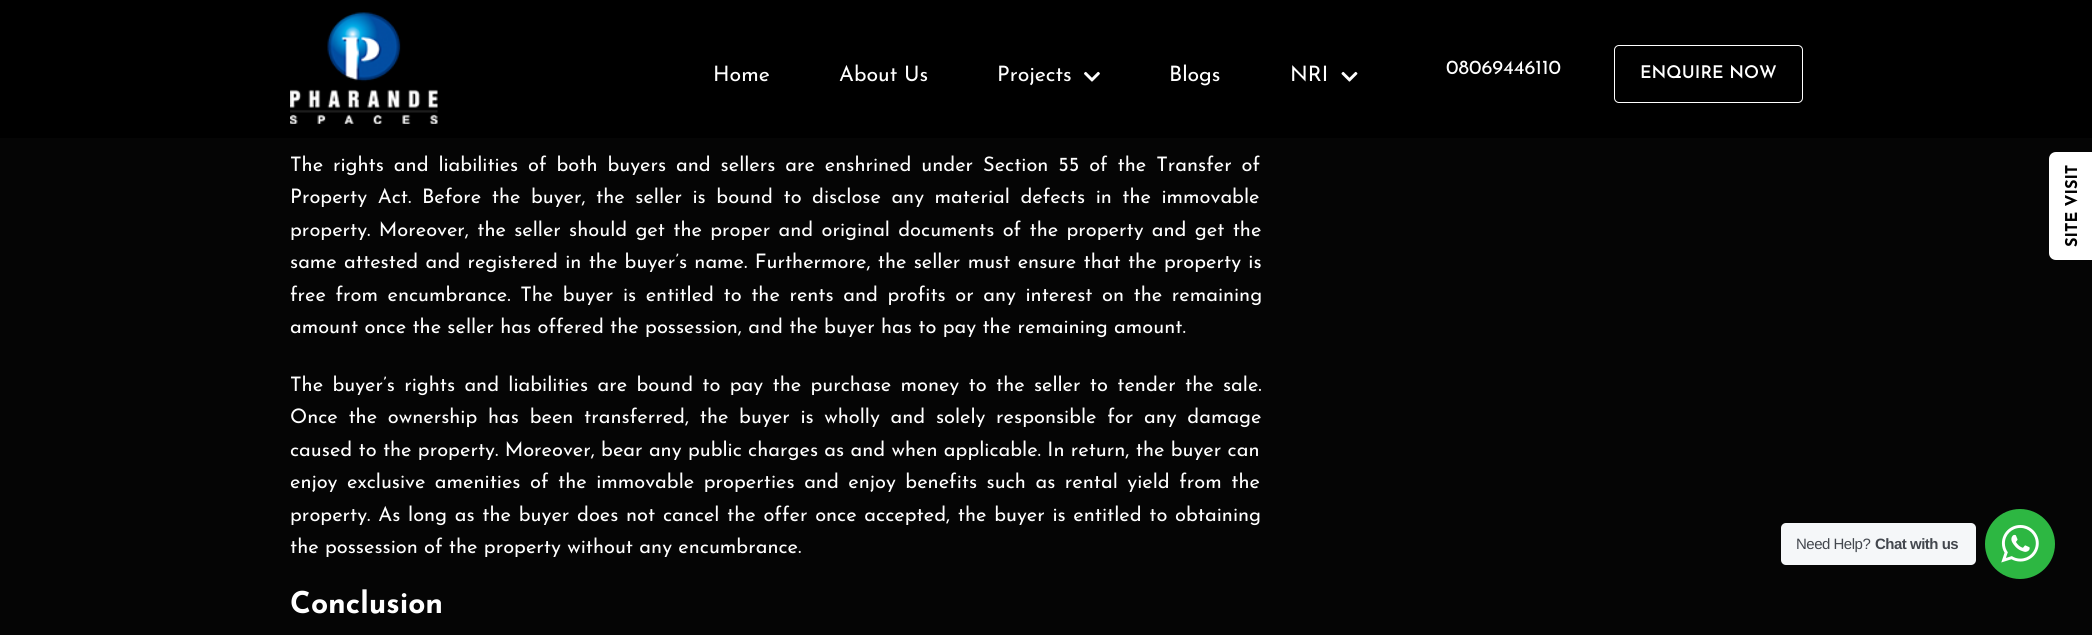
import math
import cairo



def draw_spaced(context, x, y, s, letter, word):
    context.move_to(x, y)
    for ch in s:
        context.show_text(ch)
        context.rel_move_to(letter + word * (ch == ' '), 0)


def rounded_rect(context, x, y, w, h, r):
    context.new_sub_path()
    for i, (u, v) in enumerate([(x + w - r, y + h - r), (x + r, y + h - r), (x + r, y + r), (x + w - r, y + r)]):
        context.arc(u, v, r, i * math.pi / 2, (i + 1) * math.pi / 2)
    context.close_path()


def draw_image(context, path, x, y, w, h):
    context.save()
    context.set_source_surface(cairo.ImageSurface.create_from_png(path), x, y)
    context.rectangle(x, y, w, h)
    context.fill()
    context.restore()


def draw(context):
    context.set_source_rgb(5 / 255, 5 / 255, 5 / 255)
    context.paint()
    context.set_source_rgb(0, 0, 0)
    context.rectangle(0, 0, 2092, 138)
    context.fill()
    draw_image(context, "images/1.png", 290, 12, 148, 112)
    draw_image(context, "images/2.png", 1084, 71, 16, 11)
    draw_image(context, "images/3.png", 1341, 71, 17, 11)
    rounded_rect(context, 1614.5, 45.5, 188, 57, 4.5)
    context.set_source_rgb(1, 1, 1)
    context.set_line_width(1)
    context.stroke()
    context.new_path()
    context.move_to(2049, 253)
    context.line_to(2049, 159)
    context.curve_to(2049, 155, 2052, 152, 2056, 152)
    context.line_to(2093, 152)
    context.line_to(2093, 260)
    context.line_to(2056, 260)
    context.curve_to(2052, 260, 2049, 257, 2049, 253)
    context.close_path()
    context.fill()
    context.set_source_rgb(245 / 255, 247 / 255, 249 / 255)
    rounded_rect(context, 1781, 523, 195, 42, 5)
    context.fill()
    context.set_source_rgb(45 / 255, 183 / 255, 66 / 255)
    context.arc(2020, 544, 35, 0, 2 * math.pi)
    context.fill()
    draw_image(context, "images/4.png", 2001, 525, 38, 38)
    context.select_font_face("Josefin Sans")
    context.set_font_size(21.25)
    context.set_source_rgb(1, 1, 1)
    context.move_to(713, 81)
    context.show_text("Home")
    context.move_to(839, 81)
    context.show_text("About Us")
    context.move_to(997, 81)
    context.show_text("Projects")
    context.move_to(1169, 81)
    context.show_text("Blogs")
    context.move_to(1290, 81)
    context.show_text("NRI")
    context.set_font_size(20)
    context.move_to(1446, 74)
    context.show_text("08069446110")
    context.select_font_face("Josefin Sans SemiBold")
    context.set_font_size(17.5)
    context.move_to(1640, 78)
    context.show_text("ENQUIRE NOW")
    context.select_font_face("Josefin Sans")
    context.set_font_size(20)
    draw_spaced(context, 290, 171, "The rights and liabilities of both buyers and sellers are enshrined under Section 55 of the Transfer of", 0, 3.6)
    draw_spaced(context, 290, 203, "Property Act. Before the buyer, the seller is bound to disclose any material defects in the immovable", 0, 4.25)
    draw_spaced(context, 290, 236, "property. Moreover, the seller should get the proper and original documents of the property and get the", 0, 2)
    draw_spaced(context, 290, 268, "same attested and registered in the buyer’s name. Furthermore, the seller must ensure that the property is", 0, 1)
    draw_spaced(context, 290, 301, "free from encumbrance. The buyer is entitled to the rents and profits or any interest on the remaining", 0, 3.25)
    context.move_to(290, 333)
    context.show_text("amount once the seller has offered the possession, and the buyer has to pay the remaining amount.")
    draw_spaced(context, 290, 391, "The buyer’s rights and liabilities are bound to pay the purchase money to the seller to tender the sale.", 0, 3)
    draw_spaced(context, 290, 423, "Once the ownership has been transferred, the buyer is wholly and solely responsible for any damage", 0, 4.4)
    context.move_to(290, 456)
    context.show_text("caused to the property. Moreover, bear any public charges as and when applicable. In return, the buyer can")
    draw_spaced(context, 290, 488, "enjoy exclusive amenities of the immovable properties and enjoy benefits such as rental yield from the", 0, 3.25)
    draw_spaced(context, 290, 521, "property. As long as the buyer does not cancel the offer once accepted, the buyer is entitled to obtaining", 0, 1.4)
    context.move_to(290, 553)
    context.show_text("the possession of the property without any encumbrance.")
    context.select_font_face("Josefin Sans", cairo.FontSlant.NORMAL, cairo.FontWeight.BOLD)
    context.set_font_size(30)
    context.move_to(290, 613)
    context.show_text("Conclusion")
    context.set_font_size(16.25)
    context.set_source_rgb(0, 0, 0)
    context.save()
    context.translate(2077, 247)
    context.rotate(-90 * math.pi / 180)
    context.move_to(0, 0)
    context.show_text("SITE VISIT")
    context.restore()
    context.select_font_face("Liberation Sans")
    context.set_font_size(15)
    context.set_source_rgb(67 / 255, 71 / 255, 78 / 255)
    draw_spaced(context, 1796, 549, "Need Help?", -0.5, 0)
    context.select_font_face("Liberation Sans", cairo.FontSlant.NORMAL, cairo.FontWeight.BOLD)
    draw_spaced(context, 1875, 549, "Chat with us", -0.5, 0)


surface = cairo.ImageSurface(cairo.Format.RGB24, 2092, 635)
context = cairo.Context(surface)
options = cairo.FontOptions()
options.set_hint_metrics(cairo.HintMetrics.OFF)
options.set_hint_style(cairo.HintStyle.NONE)
context.set_font_options(options)
context.set_miter_limit(4)
draw(context)
surface.write_to_png("out.png")
